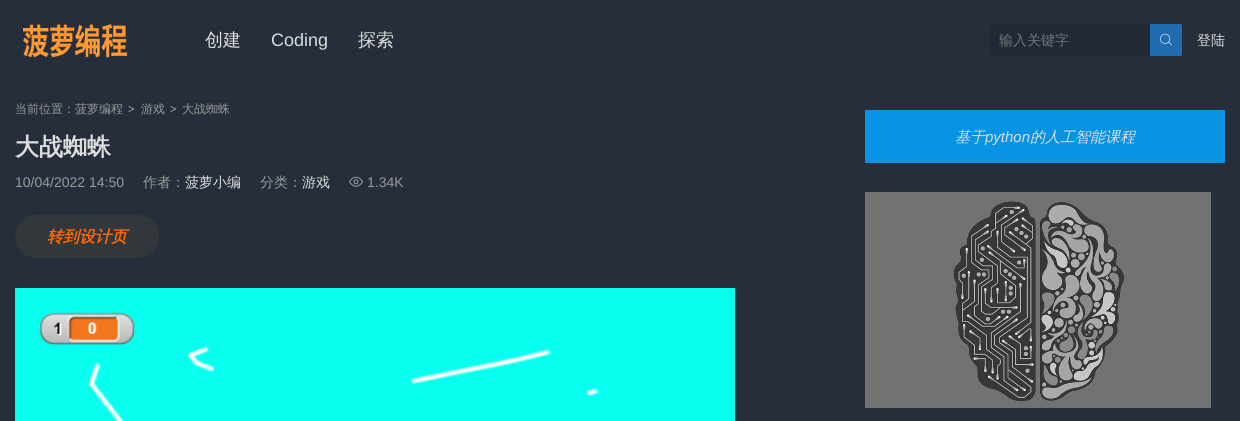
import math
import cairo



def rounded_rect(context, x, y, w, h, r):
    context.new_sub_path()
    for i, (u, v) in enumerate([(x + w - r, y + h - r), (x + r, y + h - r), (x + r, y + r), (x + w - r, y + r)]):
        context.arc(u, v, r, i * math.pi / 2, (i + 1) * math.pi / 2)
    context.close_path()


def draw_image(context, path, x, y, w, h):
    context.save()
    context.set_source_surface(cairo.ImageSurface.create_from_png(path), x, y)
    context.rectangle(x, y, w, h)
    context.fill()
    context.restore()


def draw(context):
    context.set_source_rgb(37 / 255, 46 / 255, 58 / 255)
    context.paint()
    draw_image(context, "images/1.png", 23, 23, 104, 35)
    context.set_source_rgb(32 / 255, 41 / 255, 53 / 255)
    context.new_path()
    context.move_to(992, 24)
    context.line_to(1150, 24)
    context.line_to(1150, 56)
    context.line_to(992, 56)
    context.curve_to(991, 56, 990, 55, 990, 54)
    context.line_to(990, 26)
    context.curve_to(990, 25, 991, 24, 992, 24)
    context.close_path()
    context.fill()
    context.set_source_rgb(31 / 255, 108 / 255, 177 / 255)
    context.new_path()
    context.move_to(1150, 24)
    context.line_to(1180, 24)
    context.curve_to(1181, 24, 1182, 25, 1182, 26)
    context.line_to(1182, 54)
    context.curve_to(1182, 55, 1181, 56, 1180, 56)
    context.line_to(1150, 56)
    context.close_path()
    context.fill()
    draw_image(context, "images/2.png", 1160, 33, 12, 13)
    draw_image(context, "images/3.png", 349, 176, 14, 11)
    context.set_source_rgb(50 / 255, 55 / 255, 60 / 255)
    rounded_rect(context, 15, 215, 144, 43, 21.5)
    context.fill()
    draw_image(context, "images/4.png", 15, 288, 720, 133)
    context.set_source_rgb(6 / 255, 147 / 255, 227 / 255)
    context.rectangle(865, 110, 360, 53)
    context.fill()
    draw_image(context, "images/5.png", 865, 192, 346, 216)
    context.select_font_face("WenQuanYi Zen Hei Medium")
    context.set_font_size(18)
    context.set_source_rgb(221 / 255, 221 / 255, 221 / 255)
    context.move_to(205, 46)
    context.show_text("创建")
    context.select_font_face("Liberation Sans")
    context.move_to(271, 46)
    context.show_text("Coding")
    context.select_font_face("WenQuanYi Zen Hei Medium")
    context.move_to(358, 46)
    context.show_text("探索")
    context.set_font_size(14)
    context.set_source_rgb(117 / 255, 117 / 255, 117 / 255)
    context.move_to(999, 45)
    context.show_text("输入关键字")
    context.set_source_rgb(221 / 255, 221 / 255, 221 / 255)
    context.move_to(1197, 45)
    context.show_text("登陆")
    context.set_font_size(12)
    context.set_source_rgb(153 / 255, 153 / 255, 153 / 255)
    context.move_to(15, 113)
    context.show_text("当前位置：菠萝编程")
    context.select_font_face("Liberation Serif", cairo.FontSlant.NORMAL, cairo.FontWeight.BOLD)
    context.set_source_rgb(187 / 255, 187 / 255, 187 / 255)
    context.move_to(128, 113)
    context.show_text(">")
    context.select_font_face("WenQuanYi Zen Hei Medium")
    context.set_source_rgb(153 / 255, 153 / 255, 153 / 255)
    context.move_to(141, 113)
    context.show_text("游戏")
    context.select_font_face("Liberation Serif", cairo.FontSlant.NORMAL, cairo.FontWeight.BOLD)
    context.set_source_rgb(187 / 255, 187 / 255, 187 / 255)
    context.move_to(170, 113)
    context.show_text(">")
    context.select_font_face("WenQuanYi Zen Hei Medium")
    context.set_source_rgb(153 / 255, 153 / 255, 153 / 255)
    context.move_to(182, 113)
    context.show_text("大战蜘蛛")
    context.select_font_face("WenQuanYi Zen Hei", cairo.FontSlant.NORMAL, cairo.FontWeight.BOLD)
    context.set_font_size(24)
    context.set_source_rgb(221 / 255, 221 / 255, 221 / 255)
    context.move_to(15, 155)
    context.show_text("大战蜘蛛")
    context.select_font_face("Liberation Sans")
    context.set_font_size(14)
    context.set_source_rgb(153 / 255, 153 / 255, 153 / 255)
    context.move_to(15, 187)
    context.show_text("10/04/2022 14:50")
    context.select_font_face("WenQuanYi Zen Hei Medium")
    context.move_to(143, 187)
    context.show_text("作者：")
    context.set_source_rgb(221 / 255, 221 / 255, 221 / 255)
    context.move_to(185, 187)
    context.show_text("菠萝小编")
    context.set_source_rgb(153 / 255, 153 / 255, 153 / 255)
    context.move_to(260, 187)
    context.show_text("分类：")
    context.set_source_rgb(221 / 255, 221 / 255, 221 / 255)
    context.move_to(302, 187)
    context.show_text("游戏")
    context.select_font_face("Liberation Sans")
    context.set_source_rgb(153 / 255, 153 / 255, 153 / 255)
    context.move_to(367, 187)
    context.show_text("1.34K")
    context.select_font_face("WenQuanYi Zen Hei", cairo.FontSlant.ITALIC, cairo.FontWeight.BOLD)
    context.set_font_size(16)
    context.set_source_rgb(1, 105 / 255, 0)
    context.move_to(47, 242)
    context.show_text("转到设计页")
    context.select_font_face("WenQuanYi Zen Hei Medium", cairo.FontSlant.ITALIC)
    context.set_font_size(15)
    context.set_source_rgb(221 / 255, 221 / 255, 221 / 255)
    context.move_to(955, 142)
    context.show_text("基于")
    context.select_font_face("Liberation Sans", cairo.FontSlant.ITALIC)
    context.move_to(985, 142)
    context.show_text("python")
    context.select_font_face("WenQuanYi Zen Hei Medium", cairo.FontSlant.ITALIC)
    context.move_to(1030, 142)
    context.show_text("的人工智能课程")


surface = cairo.ImageSurface(cairo.Format.RGB24, 1240, 421)
context = cairo.Context(surface)
options = cairo.FontOptions()
options.set_hint_metrics(cairo.HintMetrics.OFF)
options.set_hint_style(cairo.HintStyle.NONE)
context.set_font_options(options)
context.set_miter_limit(4)
draw(context)
surface.write_to_png("out.png")
